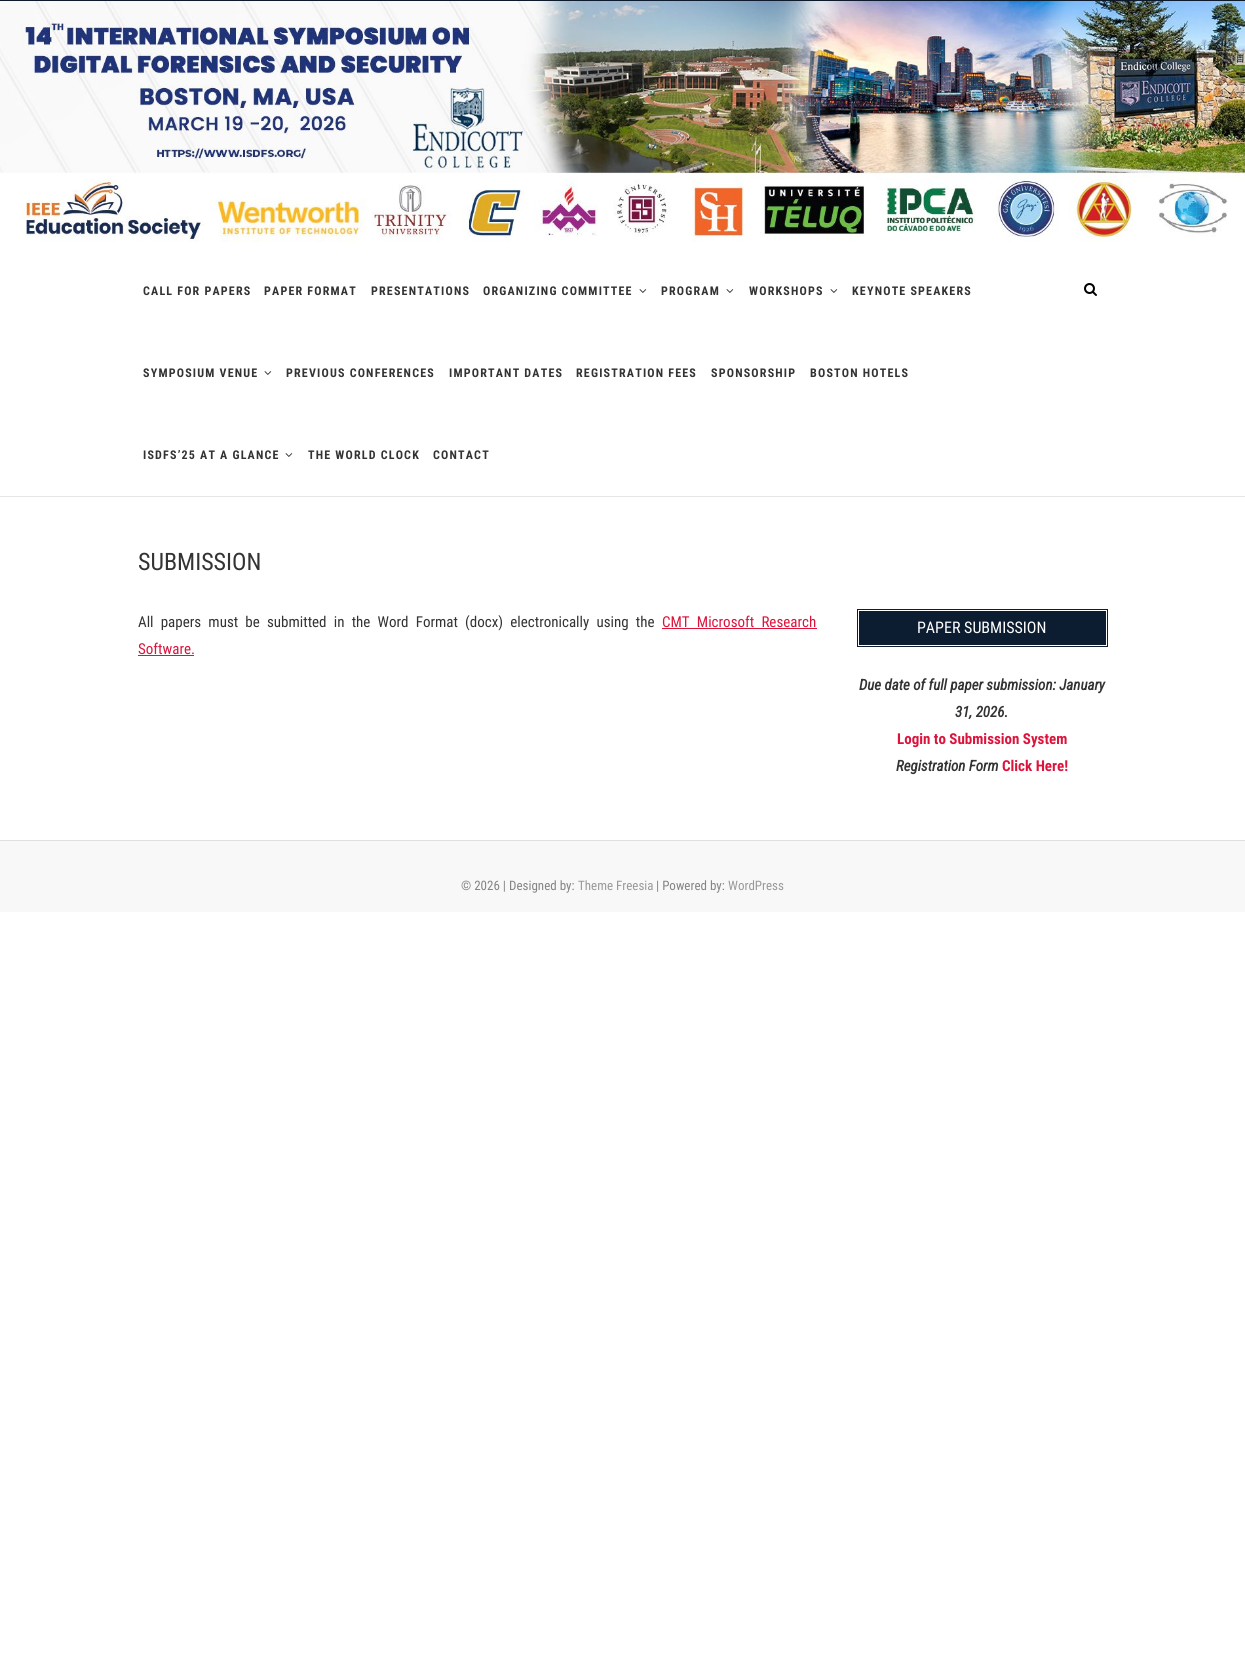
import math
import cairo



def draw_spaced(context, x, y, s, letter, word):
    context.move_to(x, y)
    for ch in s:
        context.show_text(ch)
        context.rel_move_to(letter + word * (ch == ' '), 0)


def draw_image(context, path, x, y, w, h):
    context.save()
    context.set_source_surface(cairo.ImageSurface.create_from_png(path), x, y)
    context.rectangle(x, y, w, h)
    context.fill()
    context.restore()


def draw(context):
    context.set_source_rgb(1, 1, 1)
    context.paint()
    context.set_source_rgb(12 / 255, 26 / 255, 44 / 255)
    context.rectangle(0, 0, 1245, 1)
    context.fill()
    draw_image(context, "images/1.png", 0, 1, 1245, 241)
    context.set_source_rgb(230 / 255, 230 / 255, 230 / 255)
    context.rectangle(0, 496, 1245, 1)
    context.fill()
    draw_image(context, "images/2.png", 639, 289, 8, 4)
    draw_image(context, "images/2.png", 726, 289, 8, 4)
    draw_image(context, "images/2.png", 830, 289, 8, 4)
    draw_image(context, "images/2.png", 264, 371, 8, 4)
    draw_image(context, "images/2.png", 285, 453, 8, 4)
    draw_image(context, "images/3.png", 1084, 283, 13, 13)
    context.set_source_rgb(220 / 255, 20 / 255, 60 / 255)
    context.rectangle(662, 628, 155, 1)
    context.fill()
    context.rectangle(138, 655, 56, 1)
    context.fill()
    context.set_source_rgb(13 / 255, 29 / 255, 49 / 255)
    context.rectangle(859, 611, 247, 34)
    context.fill()
    context.rectangle(857.5, 609.5, 250, 37)
    context.set_line_width(1)
    context.stroke()
    context.set_source_rgb(248 / 255, 248 / 255, 248 / 255)
    context.rectangle(0, 841, 1245, 71)
    context.fill()
    context.set_source_rgb(223 / 255, 223 / 255, 223 / 255)
    context.rectangle(0, 840, 1245, 1)
    context.fill()
    context.select_font_face("Roboto Condensed", cairo.FontSlant.NORMAL, cairo.FontWeight.BOLD)
    context.set_font_size(12)
    context.set_source_rgb(51 / 255, 51 / 255, 51 / 255)
    draw_spaced(context, 143, 295, "CALL FOR PAPERS", 1.2, 0)
    draw_spaced(context, 264, 295, "PAPER FORMAT", 1.2, 0)
    draw_spaced(context, 371, 295, "PRESENTATIONS", 1.2, 0)
    draw_spaced(context, 483, 295, "ORGANIZING COMMITTEE", 1.2, 0)
    draw_spaced(context, 661, 295, "PROGRAM", 1.2, 0)
    draw_spaced(context, 749, 295, "WORKSHOPS", 1.2, 0)
    draw_spaced(context, 852, 295, "KEYNOTE SPEAKERS", 1.2, 0)
    draw_spaced(context, 143, 377, "SYMPOSIUM VENUE", 1.2, 0)
    draw_spaced(context, 286, 377, "PREVIOUS CONFERENCES", 1.2, 0)
    draw_spaced(context, 449, 377, "IMPORTANT DATES", 1.2, 0)
    draw_spaced(context, 576, 377, "REGISTRATION FEES", 1.2, 0)
    draw_spaced(context, 711, 377, "SPONSORSHIP", 1.2, 0)
    draw_spaced(context, 810, 377, "BOSTON HOTELS", 1.2, 0)
    draw_spaced(context, 143, 459, "ISDFS’25 AT A GLANCE", 1.2, 0)
    draw_spaced(context, 308, 459, "THE WORLD CLOCK", 1.2, 0)
    draw_spaced(context, 433, 459, "CONTACT", 1.2, 0)
    context.select_font_face("Roboto Condensed")
    context.set_font_size(24)
    context.move_to(138, 570)
    context.show_text("SUBMISSION")
    context.set_font_size(15)
    draw_spaced(context, 138, 627, "All papers must be submitted in the Word Format (docx) electronically using the", 0, 3.75)
    context.set_source_rgb(220 / 255, 20 / 255, 60 / 255)
    draw_spaced(context, 662, 627, "CMT Microsoft Research", 0, 3.75)
    context.move_to(138, 654)
    context.show_text("Software.")
    context.set_font_size(16)
    context.set_source_rgb(1, 1, 1)
    context.move_to(917, 633)
    context.show_text("PAPER SUBMISSION")
    context.select_font_face("Roboto Condensed", cairo.FontSlant.ITALIC, cairo.FontWeight.BOLD)
    context.set_font_size(15)
    context.set_source_rgb(51 / 255, 51 / 255, 51 / 255)
    context.move_to(859, 690)
    context.show_text("Due date of full paper submission: January")
    context.move_to(955, 717)
    context.show_text("31, 2026.")
    context.select_font_face("Roboto Condensed", cairo.FontSlant.NORMAL, cairo.FontWeight.BOLD)
    context.set_source_rgb(220 / 255, 20 / 255, 60 / 255)
    context.move_to(897, 744)
    context.show_text("Login to Submission System")
    context.select_font_face("Roboto Condensed", cairo.FontSlant.ITALIC, cairo.FontWeight.BOLD)
    context.set_source_rgb(51 / 255, 51 / 255, 51 / 255)
    context.move_to(896, 771)
    context.show_text("Registration Form")
    context.select_font_face("Roboto Condensed", cairo.FontSlant.NORMAL, cairo.FontWeight.BOLD)
    context.set_source_rgb(220 / 255, 20 / 255, 60 / 255)
    context.move_to(1002, 771)
    context.show_text("Click Here!")
    context.select_font_face("Roboto Condensed")
    context.set_font_size(13)
    context.set_source_rgb(132 / 255, 132 / 255, 132 / 255)
    context.move_to(461, 890)
    context.show_text("© 2026 | Designed by:")
    context.set_source_rgb(153 / 255, 153 / 255, 153 / 255)
    context.move_to(578, 890)
    context.show_text("Theme Freesia")
    context.set_source_rgb(132 / 255, 132 / 255, 132 / 255)
    context.move_to(656, 890)
    context.show_text("| Powered by:")
    context.set_source_rgb(153 / 255, 153 / 255, 153 / 255)
    context.move_to(728, 890)
    context.show_text("WordPress")


surface = cairo.ImageSurface(cairo.Format.RGB24, 1245, 1670)
context = cairo.Context(surface)
options = cairo.FontOptions()
options.set_hint_metrics(cairo.HintMetrics.OFF)
options.set_hint_style(cairo.HintStyle.NONE)
context.set_font_options(options)
context.set_miter_limit(4)
draw(context)
surface.write_to_png("out.png")
